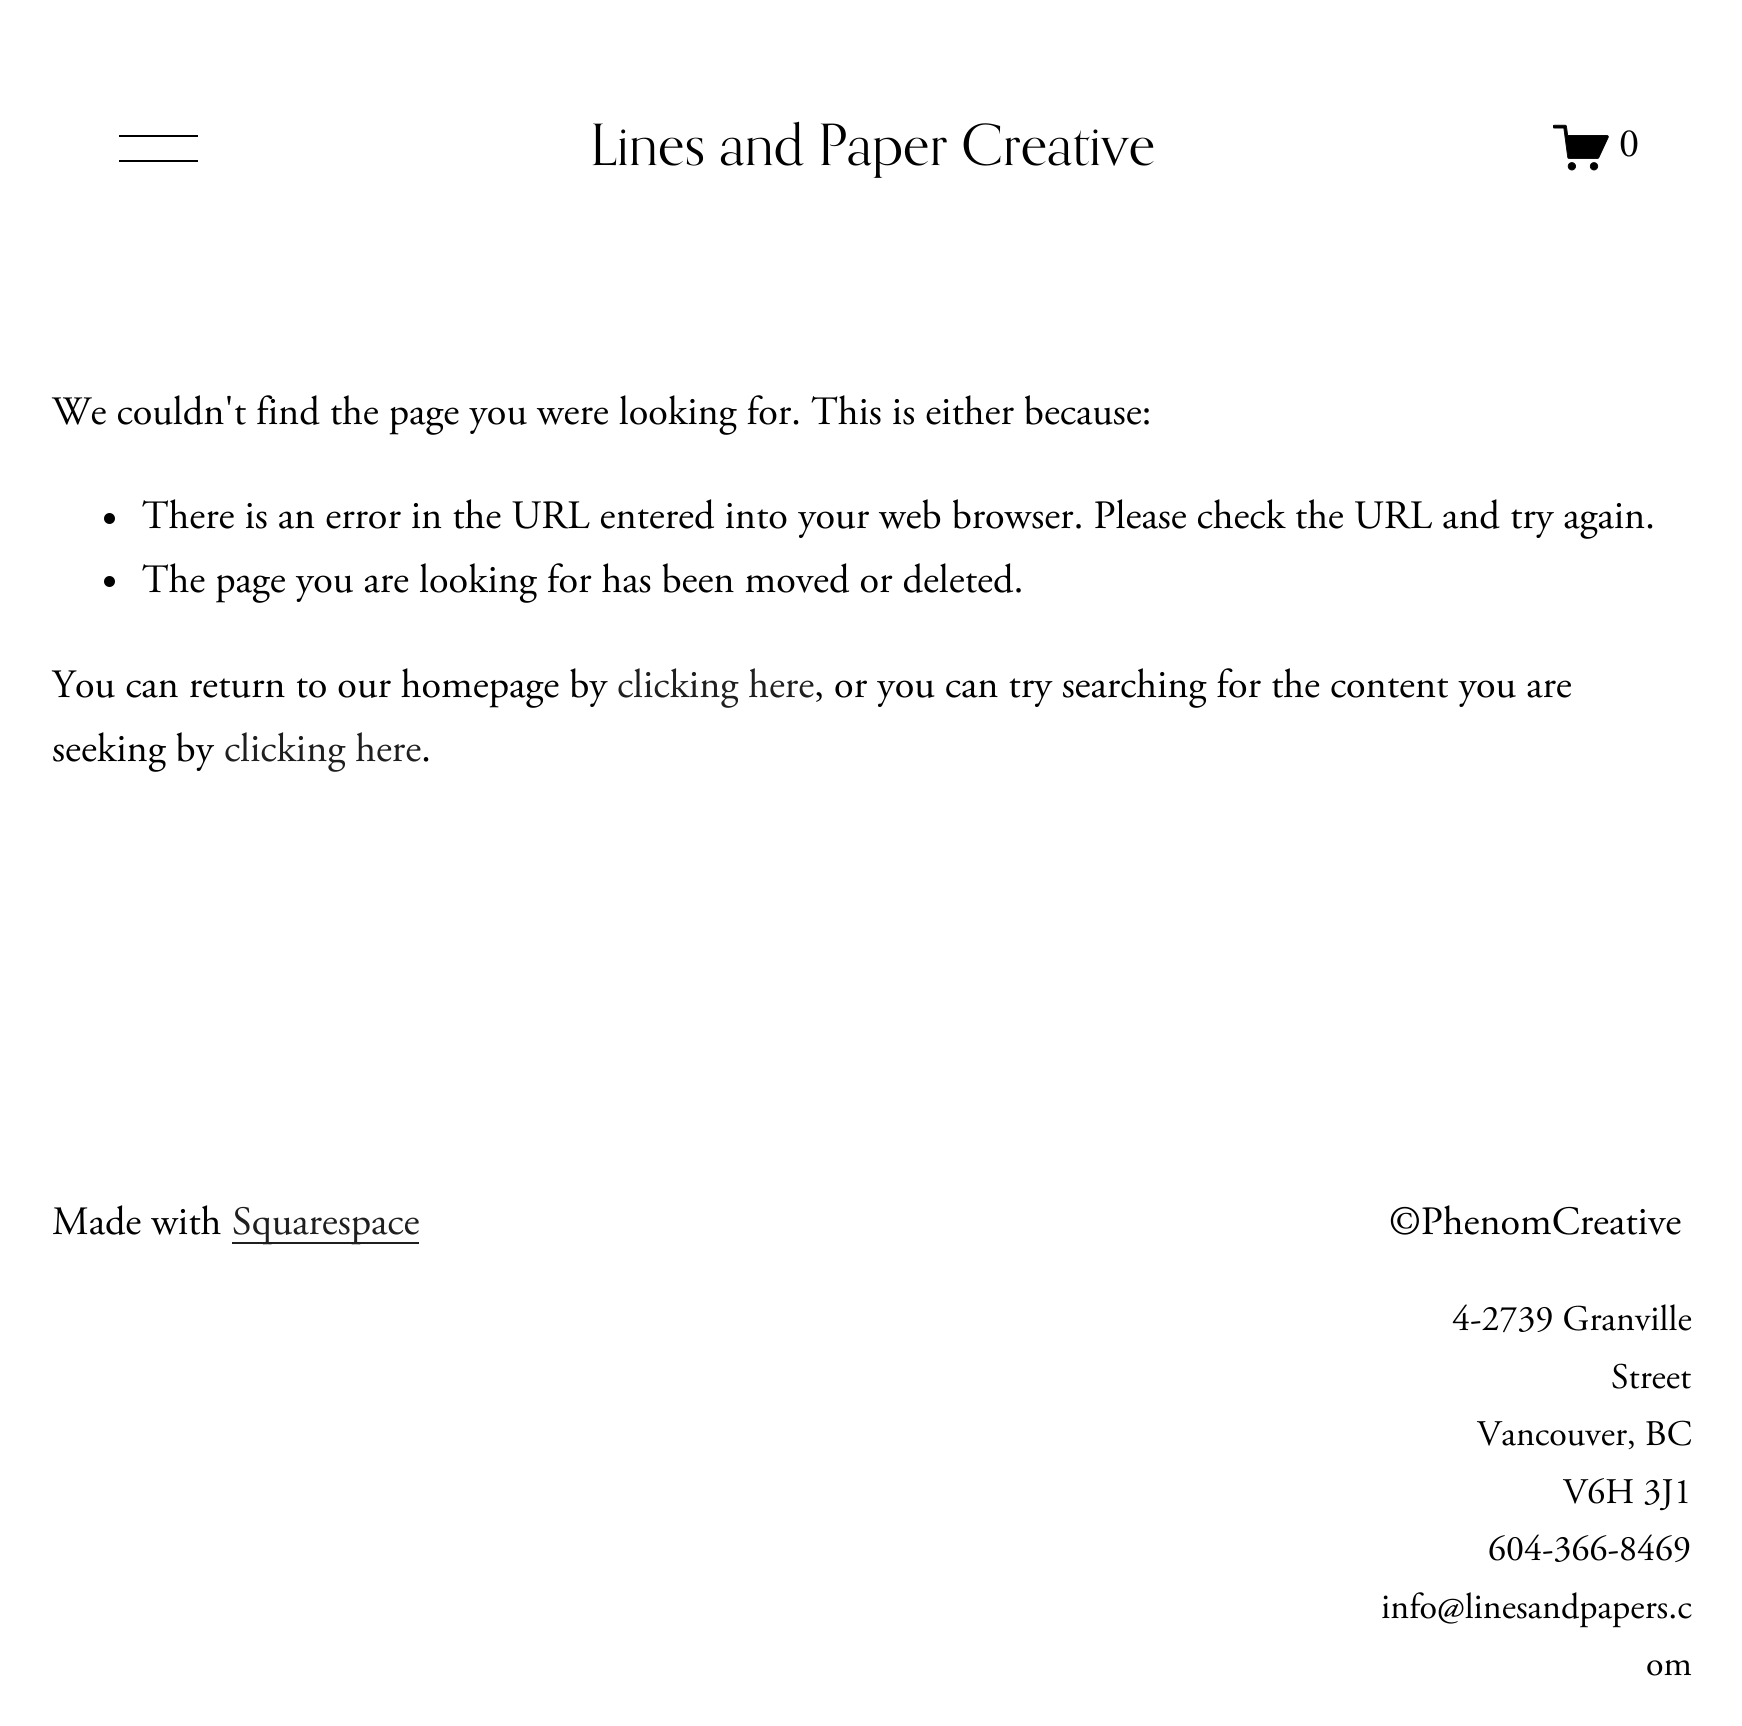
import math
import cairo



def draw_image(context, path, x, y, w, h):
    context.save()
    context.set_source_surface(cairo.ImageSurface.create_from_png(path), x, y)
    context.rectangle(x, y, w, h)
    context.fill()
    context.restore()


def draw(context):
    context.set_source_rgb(1, 1, 1)
    context.paint()
    context.set_source_rgb(0, 0, 0)
    context.rectangle(119, 135, 79, 2)
    context.fill()
    context.rectangle(119, 160, 79, 2)
    context.fill()
    draw_image(context, "images/1.png", 1553, 124, 56, 47)
    context.arc(109.5, 518.5, 5.5, 0, 2 * math.pi)
    context.fill()
    context.arc(109.5, 581.5, 5.5, 0, 2 * math.pi)
    context.fill()
    context.set_source_rgb(31 / 255, 31 / 255, 31 / 255)
    context.rectangle(232, 1242, 187, 2)
    context.fill()
    context.select_font_face("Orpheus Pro")
    context.set_font_size(57)
    context.set_source_rgb(0, 0, 0)
    context.move_to(590, 165)
    context.show_text("Lines and Paper Creative")
    context.select_font_face("Adobe Garamond")
    context.set_font_size(40.2)
    context.move_to(1619, 156)
    context.show_text("0")
    context.move_to(52, 424)
    context.show_text("We couldn't find the page you were looking for. This is either because:")
    context.move_to(142, 528)
    context.show_text("There is an error in the URL entered into your web browser. Please check the URL and try again.")
    context.move_to(142, 592)
    context.show_text("The page you are looking for has been moved or deleted.")
    context.move_to(52, 697)
    context.show_text("You can return to our homepage by")
    context.set_source_rgb(31 / 255, 31 / 255, 31 / 255)
    context.move_to(617, 697)
    context.show_text("clicking here")
    context.set_source_rgb(0, 0, 0)
    context.move_to(814, 697)
    context.show_text(", or you can try searching for the content you are")
    context.move_to(52, 761)
    context.show_text("seeking by")
    context.set_source_rgb(31 / 255, 31 / 255, 31 / 255)
    context.move_to(224, 761)
    context.show_text("clicking here")
    context.set_source_rgb(0, 0, 0)
    context.move_to(421, 761)
    context.show_text(".")
    context.move_to(52, 1234)
    context.show_text("Made with")
    context.set_source_rgb(31 / 255, 31 / 255, 31 / 255)
    context.move_to(232, 1234)
    context.show_text("Squarespace")
    context.set_source_rgb(0, 0, 0)
    context.move_to(1389, 1234)
    context.show_text("©PhenomCreative")
    context.set_font_size(36)
    context.move_to(1452, 1330)
    context.show_text("4-2739 Granville")
    context.move_to(1611, 1388)
    context.show_text("Street")
    context.move_to(1477, 1445)
    context.show_text("Vancouver, BC")
    context.move_to(1563, 1503)
    context.show_text("V6H 3J1")
    context.move_to(1488, 1560)
    context.show_text("604-366-8469")
    context.move_to(1381, 1618)
    context.show_text("info@linesandpapers.c")
    context.move_to(1646, 1675)
    context.show_text("om")


surface = cairo.ImageSurface(cairo.Format.RGB24, 1742, 1726)
context = cairo.Context(surface)
options = cairo.FontOptions()
options.set_hint_metrics(cairo.HintMetrics.OFF)
options.set_hint_style(cairo.HintStyle.NONE)
context.set_font_options(options)
context.set_miter_limit(4)
draw(context)
surface.write_to_png("out.png")
